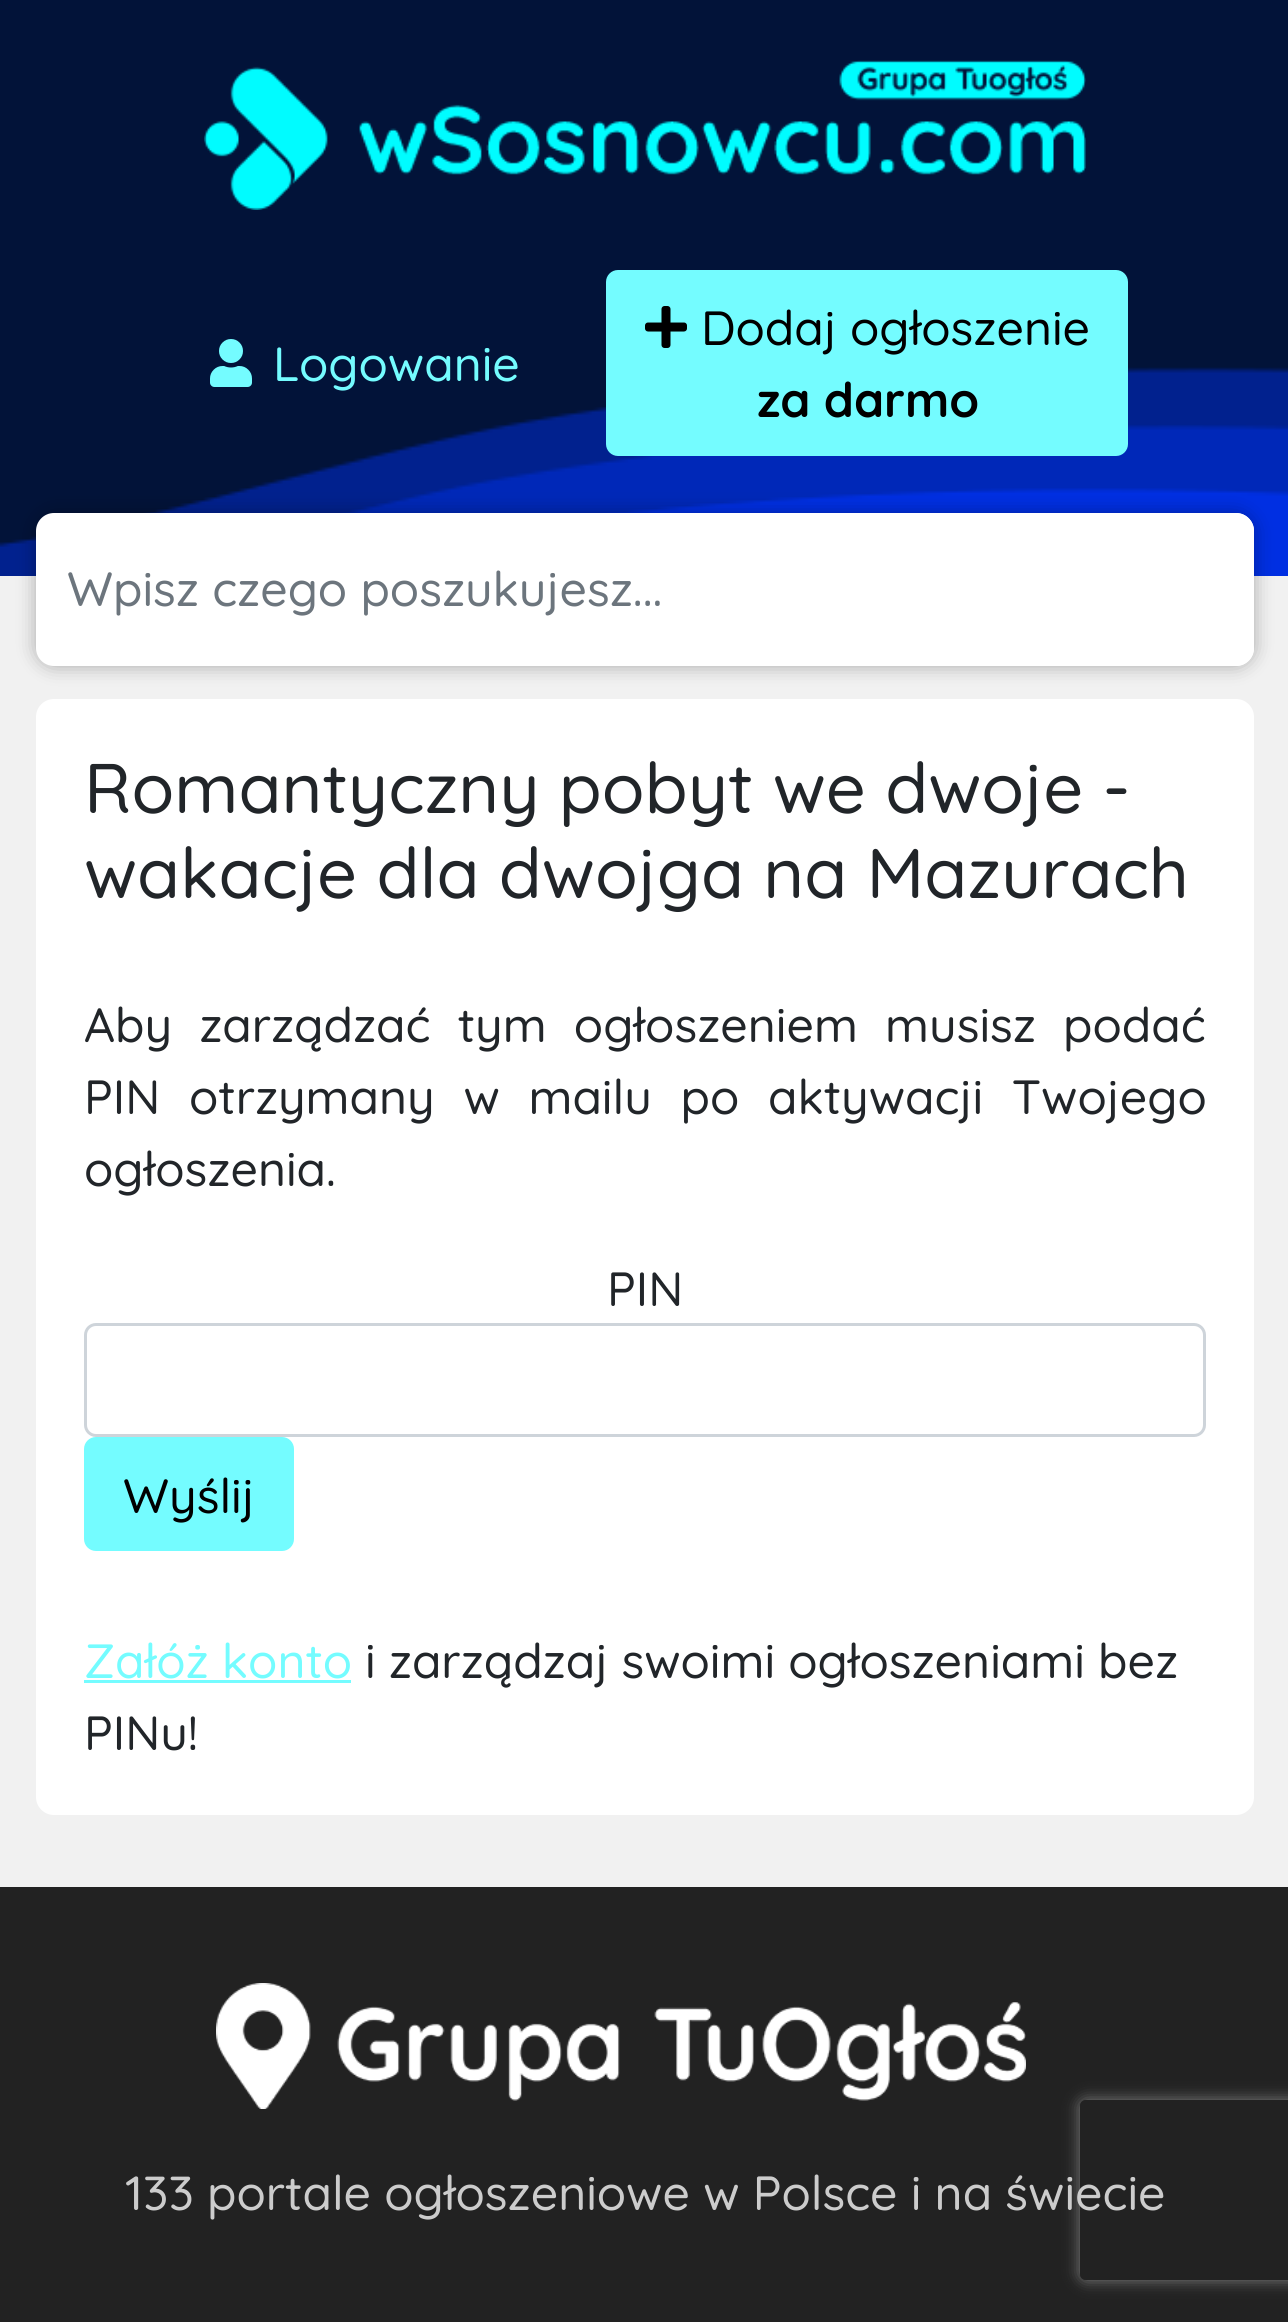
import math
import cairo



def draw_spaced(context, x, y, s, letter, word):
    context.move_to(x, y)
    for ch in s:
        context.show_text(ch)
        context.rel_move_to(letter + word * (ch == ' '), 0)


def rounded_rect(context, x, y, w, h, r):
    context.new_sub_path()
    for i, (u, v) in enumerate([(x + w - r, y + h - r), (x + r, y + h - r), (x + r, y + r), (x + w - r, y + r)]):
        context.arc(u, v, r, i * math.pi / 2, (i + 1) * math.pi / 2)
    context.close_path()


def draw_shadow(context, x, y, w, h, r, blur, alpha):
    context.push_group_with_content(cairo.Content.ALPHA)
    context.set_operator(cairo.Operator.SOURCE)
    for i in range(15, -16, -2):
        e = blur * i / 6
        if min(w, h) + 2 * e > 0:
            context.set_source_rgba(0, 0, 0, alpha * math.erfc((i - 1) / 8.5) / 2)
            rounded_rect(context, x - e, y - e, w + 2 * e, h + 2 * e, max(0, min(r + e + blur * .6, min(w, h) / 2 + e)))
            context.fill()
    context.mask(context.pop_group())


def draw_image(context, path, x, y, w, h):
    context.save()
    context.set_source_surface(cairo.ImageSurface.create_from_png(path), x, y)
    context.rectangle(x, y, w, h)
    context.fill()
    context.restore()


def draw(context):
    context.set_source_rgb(241 / 255, 241 / 255, 241 / 255)
    context.paint()
    context.set_source_rgb(2 / 255, 19 / 255, 57 / 255)
    context.rectangle(0, 0, 1288, 367)
    context.fill()
    draw_image(context, "images/1.png", 0, 367, 1288, 209)
    draw_image(context, "images/2.png", 204, 60, 882, 150)
    draw_image(context, "images/3.png", 210, 339, 42, 48)
    context.set_source_rgb(116 / 255, 252 / 255, 1)
    rounded_rect(context, 607.5, 271.5, 519, 183, 10.5)
    context.fill_preserve()
    context.set_line_width(3)
    context.stroke()
    draw_image(context, "images/4.png", 645, 306, 42, 42)
    context.set_source_rgb(0, 0, 0)
    draw_shadow(context, 36, 513, 1218, 153, 18, 9.5, 0.3)
    context.set_source_rgb(1, 1, 1)
    rounded_rect(context, 36, 513, 1218, 153, 18)
    context.fill()
    rounded_rect(context, 66, 513, 1188, 153, 18)
    context.fill()
    rounded_rect(context, 36, 699, 1218, 1116, 18)
    context.fill()
    rounded_rect(context, 85.5, 1324.5, 1119, 111, 10.5)
    context.set_source_rgb(206 / 255, 212 / 255, 218 / 255)
    context.stroke()
    context.set_source_rgb(116 / 255, 252 / 255, 1)
    rounded_rect(context, 85.5, 1438.5, 207, 111, 10.5)
    context.fill_preserve()
    context.stroke()
    context.rectangle(84, 1680, 267, 3)
    context.fill()
    context.set_source_rgb(34 / 255, 34 / 255, 34 / 255)
    context.rectangle(0, 1887, 1288, 435)
    context.fill()
    draw_image(context, "images/5.png", 216, 1983, 810, 126)
    context.save()
    context.set_fill_rule(cairo.FillRule.EVEN_ODD)
    context.new_path()
    context.move_to(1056, 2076)
    context.line_to(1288, 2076)
    context.line_to(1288, 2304)
    context.line_to(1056, 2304)
    context.close_path()
    context.move_to(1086, 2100)
    context.line_to(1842, 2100)
    context.curve_to(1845.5, 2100, 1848, 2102.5, 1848, 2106)
    context.line_to(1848, 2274)
    context.curve_to(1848, 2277.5, 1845.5, 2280, 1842, 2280)
    context.line_to(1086, 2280)
    context.curve_to(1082.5, 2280, 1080, 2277.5, 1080, 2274)
    context.line_to(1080, 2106)
    context.curve_to(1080, 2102.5, 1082.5, 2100, 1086, 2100)
    context.close_path()
    context.clip()
    context.set_source_rgb(128 / 255, 128 / 255, 128 / 255)
    draw_shadow(context, 1080, 2100, 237, 180, 6, 7.5, 1)
    context.restore()
    context.select_font_face("Quicksand Medium")
    context.set_font_size(48)
    context.set_source_rgb(116 / 255, 252 / 255, 1)
    context.move_to(273, 381)
    context.show_text("Logowanie")
    context.set_source_rgb(0, 0, 0)
    context.move_to(701, 345)
    context.show_text("Dodaj ogłoszenie")
    context.select_font_face("Quicksand", cairo.FontSlant.NORMAL, cairo.FontWeight.BOLD)
    context.move_to(757, 417)
    context.show_text("za darmo")
    context.select_font_face("Quicksand Medium")
    context.set_source_rgb(108 / 255, 117 / 255, 125 / 255)
    context.move_to(67, 606)
    context.show_text("Wpisz czego poszukujesz...")
    context.set_font_size(70.1)
    context.set_source_rgb(33 / 255, 37 / 255, 41 / 255)
    context.move_to(84, 813)
    context.show_text("Romantyczny pobyt we dwoje -")
    context.move_to(84, 898)
    context.show_text("wakacje dla dwojga na Mazurach")
    context.set_font_size(48)
    draw_spaced(context, 84, 1042, "Aby zarządzać tym ogłoszeniem musisz podać", 0, 14)
    draw_spaced(context, 84, 1114, "PIN otrzymany w mailu po aktywacji Twojego", 0, 15.5)
    context.move_to(84, 1186)
    context.show_text("ogłoszenia.")
    context.move_to(607, 1306)
    context.show_text("PIN")
    context.set_source_rgb(0, 0, 0)
    context.move_to(123, 1513)
    context.show_text("Wyślij")
    context.set_source_rgb(116 / 255, 252 / 255, 1)
    context.move_to(84, 1678)
    context.show_text("Załóż konto")
    context.set_source_rgb(33 / 255, 37 / 255, 41 / 255)
    context.move_to(365, 1678)
    context.show_text("i zarządzaj swoimi ogłoszeniami bez")
    context.move_to(84, 1750)
    context.show_text("PINu!")
    context.set_source_rgb(204 / 255, 204 / 255, 204 / 255)
    context.move_to(125, 2210)
    context.show_text("133 portale ogłoszeniowe w Polsce i na świecie")


surface = cairo.ImageSurface(cairo.Format.RGB24, 1288, 2322)
context = cairo.Context(surface)
options = cairo.FontOptions()
options.set_hint_metrics(cairo.HintMetrics.OFF)
options.set_hint_style(cairo.HintStyle.NONE)
context.set_font_options(options)
context.set_miter_limit(4)
draw(context)
surface.write_to_png("out.png")
